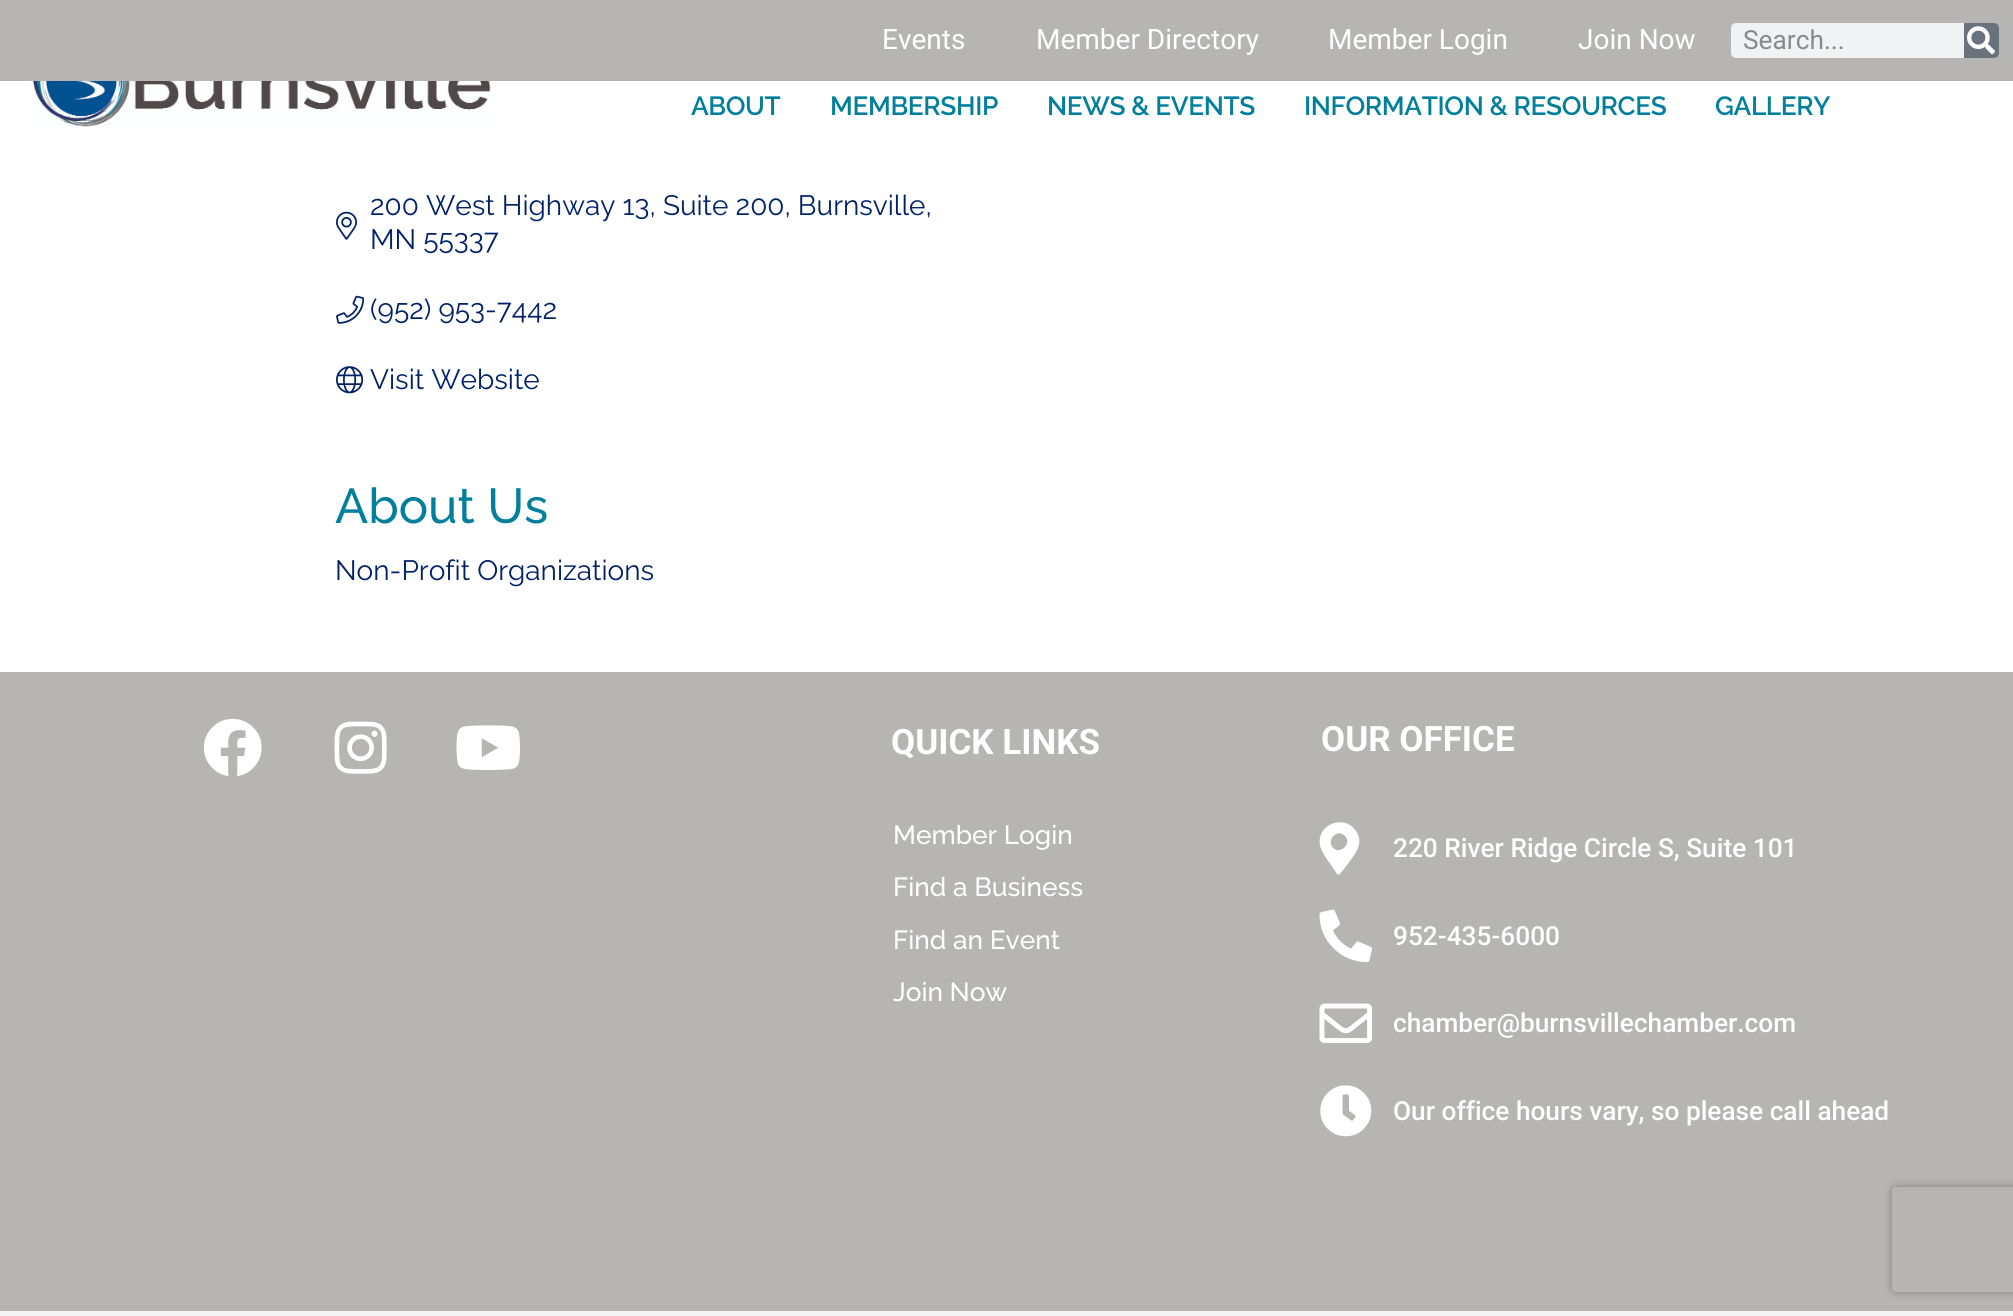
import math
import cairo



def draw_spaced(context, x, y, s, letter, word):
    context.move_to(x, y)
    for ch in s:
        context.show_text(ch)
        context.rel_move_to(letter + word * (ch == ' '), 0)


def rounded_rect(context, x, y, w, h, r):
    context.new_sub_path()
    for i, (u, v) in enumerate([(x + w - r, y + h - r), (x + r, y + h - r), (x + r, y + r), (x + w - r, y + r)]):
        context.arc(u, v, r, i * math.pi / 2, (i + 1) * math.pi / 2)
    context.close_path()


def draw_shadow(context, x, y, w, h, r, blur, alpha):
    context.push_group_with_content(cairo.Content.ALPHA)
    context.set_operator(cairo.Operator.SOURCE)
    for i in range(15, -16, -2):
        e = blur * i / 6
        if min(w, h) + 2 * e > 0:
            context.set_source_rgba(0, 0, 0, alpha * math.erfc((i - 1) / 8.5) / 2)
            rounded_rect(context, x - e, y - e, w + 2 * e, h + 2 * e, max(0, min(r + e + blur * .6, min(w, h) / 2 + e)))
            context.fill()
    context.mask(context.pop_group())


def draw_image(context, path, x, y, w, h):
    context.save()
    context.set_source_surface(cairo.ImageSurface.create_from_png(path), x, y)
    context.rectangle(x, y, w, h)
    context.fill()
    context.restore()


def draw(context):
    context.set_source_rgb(1, 1, 1)
    context.paint()
    context.set_source_rgb(183 / 255, 180 / 255, 180 / 255)
    context.rectangle(0, 0, 2013, 81)
    context.fill()
    context.set_source_rgb(241 / 255, 242 / 255, 243 / 255)
    rounded_rect(context, 1731, 23, 268, 35, 5)
    context.fill()
    context.set_source_rgb(105 / 255, 114 / 255, 125 / 255)
    context.new_path()
    context.move_to(1964, 23)
    context.line_to(1994, 23)
    context.curve_to(1997, 23, 1999, 25, 1999, 28)
    context.line_to(1999, 53)
    context.curve_to(1999, 56, 1997, 58, 1994, 58)
    context.line_to(1964, 58)
    context.close_path()
    context.fill()
    draw_image(context, "images/1.png", 1967, 26, 28, 29)
    draw_image(context, "images/2.png", 31, 81, 460, 46)
    draw_image(context, "images/3.png", 336, 211, 21, 29)
    draw_image(context, "images/4.png", 336, 295, 28, 29)
    draw_image(context, "images/5.png", 336, 366, 28, 28)
    context.set_source_rgb(183 / 255, 180 / 255, 180 / 255)
    context.rectangle(0, 672, 2013, 639)
    context.fill()
    draw_image(context, "images/6.png", 203, 718, 59, 59)
    draw_image(context, "images/7.png", 334, 721, 53, 53)
    draw_image(context, "images/8.png", 456, 725, 64, 45)
    context.set_source_rgb(1, 1, 1)
    context.new_path()
    context.move_to(1337, 874)
    context.curve_to(1333, 867, 1321, 853, 1320, 845)
    context.curve_to(1316, 825, 1344, 813, 1356, 831)
    context.curve_to(1365, 844, 1354, 855, 1347, 865)
    context.line_to(1340, 874)
    context.curve_to(1339, 875, 1338, 875, 1337, 874)
    context.close_path()
    context.move_to(1333, 848)
    context.curve_to(1341, 855, 1352, 843, 1345, 836)
    context.curve_to(1337, 828, 1326, 840, 1333, 848)
    context.close_path()
    context.fill()
    draw_image(context, "images/9.png", 1319, 909, 53, 53)
    draw_image(context, "images/10.png", 1319, 1003, 53, 40)
    draw_image(context, "images/11.png", 1320, 1085, 52, 52)
    context.set_source_rgb(244 / 255, 244 / 255, 244 / 255)
    context.rectangle(0, 1311, 2013, 5)
    context.fill()
    context.save()
    context.set_fill_rule(cairo.FillRule.EVEN_ODD)
    context.new_path()
    context.move_to(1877, 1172)
    context.line_to(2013, 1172)
    context.line_to(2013, 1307)
    context.line_to(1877, 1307)
    context.close_path()
    context.move_to(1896, 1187)
    context.line_to(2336, 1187)
    context.curve_to(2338, 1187, 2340, 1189, 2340, 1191)
    context.line_to(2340, 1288)
    context.curve_to(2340, 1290, 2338, 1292, 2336, 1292)
    context.line_to(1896, 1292)
    context.curve_to(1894, 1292, 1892, 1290, 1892, 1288)
    context.line_to(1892, 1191)
    context.curve_to(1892, 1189, 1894, 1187, 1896, 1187)
    context.close_path()
    context.clip()
    context.set_source_rgb(128 / 255, 128 / 255, 128 / 255)
    draw_shadow(context, 1892, 1187, 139, 105, 4, 4.5, 1)
    context.restore()
    context.select_font_face("Roboto")
    context.set_font_size(28)
    context.set_source_rgb(1, 1, 1)
    context.move_to(882, 49)
    context.show_text("Events")
    context.move_to(1036, 49)
    context.show_text("Member Directory")
    context.move_to(1328, 49)
    context.show_text("Member Login")
    context.move_to(1578, 49)
    context.show_text("Join Now")
    context.set_font_size(26.25)
    context.set_source_rgb(134 / 255, 138 / 255, 142 / 255)
    context.move_to(1743, 49)
    context.show_text("Search...")
    context.select_font_face("Raleway SemiBold")
    context.set_source_rgb(2 / 255, 127 / 255, 156 / 255)
    draw_spaced(context, 691, 115, "ABOUT", -0.35, 0)
    draw_spaced(context, 830, 115, "MEMBERSHIP", -0.35, 0)
    draw_spaced(context, 1047, 115, "NEWS & EVENTS", -0.35, 0)
    draw_spaced(context, 1304, 115, "INFORMATION & RESOURCES", -0.35, 0)
    draw_spaced(context, 1715, 115, "GALLERY", -0.35, 0)
    context.select_font_face("Raleway")
    context.set_font_size(28)
    context.set_source_rgb(1 / 255, 33 / 255, 105 / 255)
    context.move_to(370, 215)
    context.show_text("200 West Highway 13, Suite 200, Burnsville,")
    context.move_to(370, 249)
    context.show_text("MN 55337")
    context.move_to(370, 319)
    context.show_text("(952) 953-7442")
    context.move_to(370, 389)
    context.show_text("Visit Website")
    context.select_font_face("Raleway Medium")
    context.set_font_size(49)
    context.set_source_rgb(2 / 255, 127 / 255, 156 / 255)
    context.move_to(335, 523)
    context.show_text("About Us")
    context.select_font_face("Raleway")
    context.set_font_size(28)
    context.set_source_rgb(1 / 255, 33 / 255, 105 / 255)
    context.move_to(335, 580)
    context.show_text("Non-Profit Organizations")
    context.select_font_face("Roboto", cairo.FontSlant.NORMAL, cairo.FontWeight.BOLD)
    context.set_font_size(35)
    context.set_source_rgb(1, 1, 1)
    context.move_to(891, 754)
    context.show_text("QUICK LINKS")
    context.select_font_face("Raleway Medium")
    context.set_font_size(26.25)
    context.move_to(893, 844)
    context.show_text("Member Login")
    context.move_to(893, 896)
    context.show_text("Find a Business")
    context.move_to(893, 949)
    context.show_text("Find an Event")
    context.move_to(893, 1001)
    context.show_text("Join Now")
    context.select_font_face("Roboto", cairo.FontSlant.NORMAL, cairo.FontWeight.BOLD)
    context.set_font_size(35)
    context.move_to(1321, 751)
    context.show_text("OUR OFFICE")
    context.select_font_face("Roboto Medium")
    context.set_font_size(26.25)
    context.move_to(1393, 857)
    context.show_text("220 River Ridge Circle S, Suite 101")
    context.move_to(1393, 945)
    context.show_text("952-435-6000")
    context.move_to(1393, 1032)
    context.show_text("chamber@burnsvillechamber.com")
    context.move_to(1393, 1120)
    context.show_text("Our office hours vary, so please call ahead")


surface = cairo.ImageSurface(cairo.Format.RGB24, 2013, 1316)
context = cairo.Context(surface)
options = cairo.FontOptions()
options.set_hint_metrics(cairo.HintMetrics.OFF)
options.set_hint_style(cairo.HintStyle.NONE)
context.set_font_options(options)
context.set_miter_limit(4)
draw(context)
surface.write_to_png("out.png")
